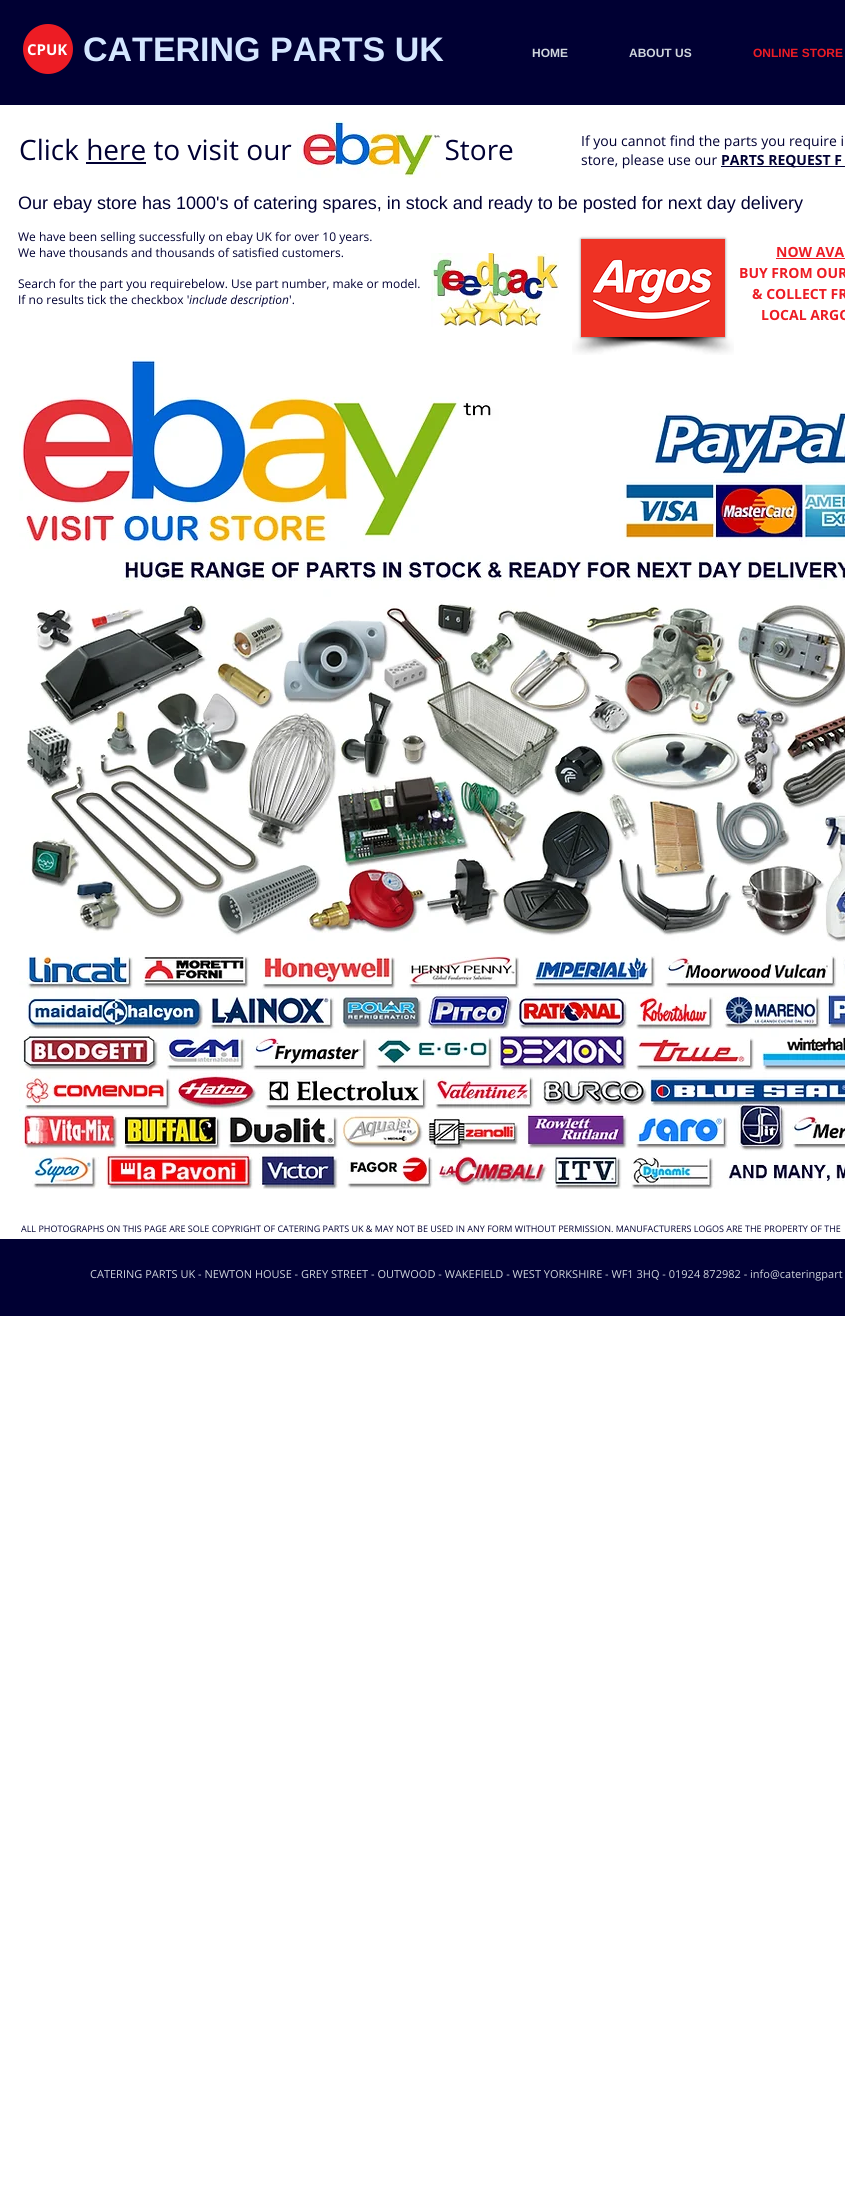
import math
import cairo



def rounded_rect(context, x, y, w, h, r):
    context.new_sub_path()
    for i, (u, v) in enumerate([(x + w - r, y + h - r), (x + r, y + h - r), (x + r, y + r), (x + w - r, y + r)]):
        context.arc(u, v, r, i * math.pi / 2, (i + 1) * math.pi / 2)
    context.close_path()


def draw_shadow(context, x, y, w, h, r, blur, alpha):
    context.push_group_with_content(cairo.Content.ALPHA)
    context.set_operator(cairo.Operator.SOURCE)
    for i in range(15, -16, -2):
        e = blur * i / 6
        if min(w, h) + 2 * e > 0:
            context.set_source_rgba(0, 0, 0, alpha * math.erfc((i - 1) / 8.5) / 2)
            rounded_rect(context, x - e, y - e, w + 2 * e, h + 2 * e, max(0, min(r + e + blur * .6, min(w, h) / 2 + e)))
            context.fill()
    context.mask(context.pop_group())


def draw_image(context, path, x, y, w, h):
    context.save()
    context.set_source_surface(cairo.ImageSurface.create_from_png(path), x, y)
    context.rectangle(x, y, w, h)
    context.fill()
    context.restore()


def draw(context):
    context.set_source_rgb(1, 1, 1)
    context.paint()
    context.set_source_rgb(0, 0, 51 / 255)
    context.rectangle(0, 0, 845, 105)
    context.fill()
    context.set_source_rgb(237 / 255, 28 / 255, 36 / 255)
    context.arc(48, 49, 25, 0, 2 * math.pi)
    context.fill()
    context.set_source_rgb(0, 0, 51 / 255)
    context.rectangle(721, 166, 124, 1)
    context.fill()
    context.rectangle(86, 162, 60, 2)
    context.fill()
    draw_image(context, "images/2.png", 431, 253, 128, 74)
    context.set_source_rgb(0, 0, 0)
    draw_shadow(context, 581, 239, 144, 98, 0, 1.5, 0.5)
    draw_image(context, "images/3.png", 581, 239, 144, 98)
    draw_image(context, "images/4.png", 572, 337, 154, 18)
    draw_image(context, "images/5.png", 580, 337, 154, 18)
    context.set_source_rgb(237 / 255, 28 / 255, 36 / 255)
    context.rectangle(776, 258, 69, 1)
    context.fill()
    draw_image(context, "images/6.png", 19, 357, 826, 832)
    context.set_source_rgb(0, 0, 51 / 255)
    context.rectangle(0, 1239, 845, 77)
    context.fill()
    context.select_font_face("Liberation Sans", cairo.FontSlant.NORMAL, cairo.FontWeight.BOLD)
    context.set_font_size(34)
    context.set_source_rgb(212 / 255, 230 / 255, 1)
    context.move_to(83, 61)
    context.show_text("CATERING PARTS UK")
    context.select_font_face("Open Sans", cairo.FontSlant.NORMAL, cairo.FontWeight.BOLD)
    context.set_font_size(15)
    context.set_source_rgb(1, 1, 1)
    context.move_to(27, 55)
    context.show_text("CPUK")
    context.select_font_face("Liberation Sans", cairo.FontSlant.NORMAL, cairo.FontWeight.BOLD)
    context.set_font_size(12)
    context.set_source_rgb(208 / 255, 214 / 255, 221 / 255)
    context.move_to(532, 57)
    context.show_text("HOME")
    context.move_to(629, 57)
    context.show_text("ABOUT US")
    context.set_source_rgb(237 / 255, 28 / 255, 36 / 255)
    context.move_to(753, 57)
    context.show_text("ONLINE STORE")
    context.select_font_face("Open Sans")
    context.set_font_size(14)
    context.set_source_rgb(0, 0, 51 / 255)
    context.move_to(581, 146)
    context.show_text("If you cannot find the parts you require i")
    context.move_to(581, 165)
    context.show_text("store, please use our")
    context.select_font_face("Open Sans", cairo.FontSlant.NORMAL, cairo.FontWeight.BOLD)
    context.move_to(721, 165)
    context.show_text("PARTS REQUEST F")
    context.select_font_face("Open Sans")
    context.set_font_size(28)
    context.move_to(19, 160)
    context.show_text("Click here to visit our                     Store")
    draw_image(context, "images/1.png", 297, 121, 144, 57)
    context.select_font_face("Liberation Sans")
    context.set_font_size(18)
    context.move_to(18, 209)
    context.show_text("Our ebay store has 1000's of catering spares, in stock and ready to be posted for next day delivery")
    context.select_font_face("Open Sans")
    context.set_font_size(12)
    context.move_to(18, 241)
    context.show_text("We have been selling successfully on ebay UK for over 10 years.")
    context.move_to(18, 257)
    context.show_text("We have thousands and thousands of satisfied customers.")
    context.move_to(18, 288)
    context.show_text("Search for the part you requirebelow. Use part number, make or model.")
    context.move_to(18, 304)
    context.show_text("If no results tick the checkbox '")
    context.select_font_face("Open Sans", cairo.FontSlant.ITALIC)
    context.move_to(189, 304)
    context.show_text("include description")
    context.select_font_face("Open Sans")
    context.move_to(289, 304)
    context.show_text("'.")
    context.select_font_face("Open Sans", cairo.FontSlant.NORMAL, cairo.FontWeight.BOLD)
    context.set_font_size(14)
    context.set_source_rgb(237 / 255, 28 / 255, 36 / 255)
    context.move_to(776, 257)
    context.show_text("NOW AVA")
    context.move_to(739, 278)
    context.show_text("BUY FROM OUR")
    context.move_to(752, 299)
    context.show_text("& COLLECT FR")
    context.move_to(761, 320)
    context.show_text("LOCAL ARGO")
    context.select_font_face("Open Sans")
    context.set_font_size(9)
    context.set_source_rgb(0, 0, 51 / 255)
    context.move_to(21, 1232)
    context.show_text("ALL PHOTOGRAPHS ON THIS PAGE ARE SOLE COPYRIGHT OF CATERING PARTS UK & MAY NOT BE USED IN ANY FORM WITHOUT PERMISSION. MANUFACTURERS LOGOS ARE THE PROPERTY OF THE")
    context.set_font_size(11)
    context.set_source_rgb(208 / 255, 214 / 255, 221 / 255)
    context.move_to(90, 1278)
    context.show_text("CATERING PARTS UK - NEWTON HOUSE - GREY STREET - OUTWOOD - WAKEFIELD - WEST YORKSHIRE - WF1 3HQ - 01924 872982 - info@cateringpart")


surface = cairo.ImageSurface(cairo.Format.RGB24, 845, 2190)
context = cairo.Context(surface)
options = cairo.FontOptions()
options.set_hint_metrics(cairo.HintMetrics.OFF)
options.set_hint_style(cairo.HintStyle.NONE)
context.set_font_options(options)
context.set_miter_limit(4)
draw(context)
surface.write_to_png("out.png")
